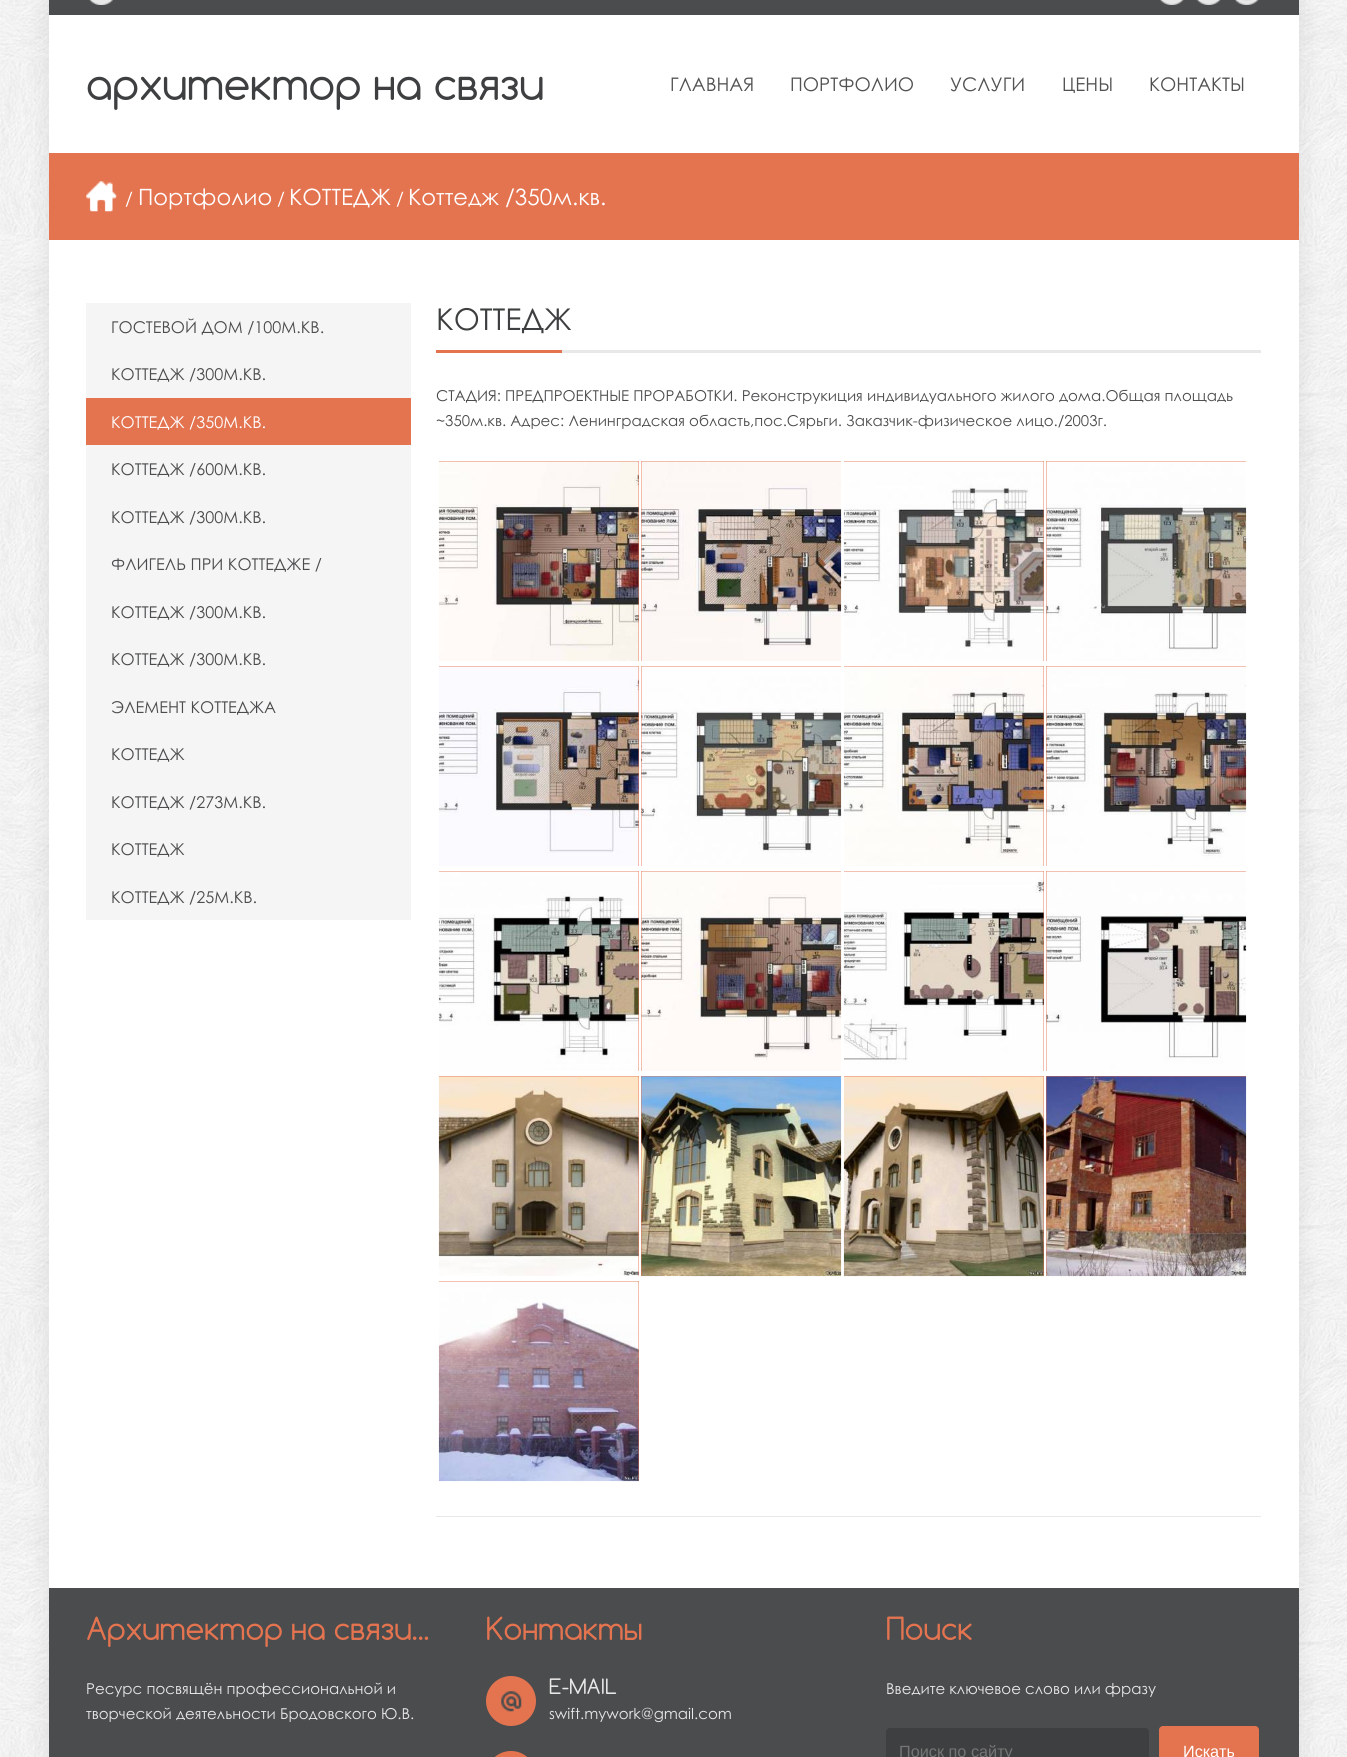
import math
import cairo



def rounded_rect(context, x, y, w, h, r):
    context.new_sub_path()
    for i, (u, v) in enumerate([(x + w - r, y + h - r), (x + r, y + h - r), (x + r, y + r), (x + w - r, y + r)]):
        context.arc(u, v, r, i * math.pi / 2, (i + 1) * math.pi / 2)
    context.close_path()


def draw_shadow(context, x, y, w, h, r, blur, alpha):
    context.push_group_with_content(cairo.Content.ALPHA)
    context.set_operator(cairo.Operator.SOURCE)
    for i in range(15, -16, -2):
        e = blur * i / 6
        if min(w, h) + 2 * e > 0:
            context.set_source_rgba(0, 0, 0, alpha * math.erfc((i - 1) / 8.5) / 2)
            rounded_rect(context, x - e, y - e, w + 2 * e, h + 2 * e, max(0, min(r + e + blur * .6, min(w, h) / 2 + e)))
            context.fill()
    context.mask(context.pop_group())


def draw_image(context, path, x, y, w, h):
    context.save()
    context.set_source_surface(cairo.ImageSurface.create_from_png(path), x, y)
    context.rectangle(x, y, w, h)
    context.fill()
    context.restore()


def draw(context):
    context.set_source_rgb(1, 1, 1)
    context.paint()
    draw_image(context, "images/1.png", 0, 0, 1347, 1757)
    context.set_source_rgb(0, 0, 0)
    draw_shadow(context, 49, -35, 1250, 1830, 0, 12.5, 0.1)
    context.set_source_rgb(1, 1, 1)
    context.rectangle(49, 15, 1250, 1573)
    context.fill()
    context.set_source_rgb(75 / 255, 76 / 255, 77 / 255)
    context.rectangle(49, 0, 1250, 15)
    context.fill()
    draw_image(context, "images/2.png", 89, 0, 25, 5)
    draw_image(context, "images/3.png", 1160, 0, 24, 5)
    draw_image(context, "images/4.png", 1196, 0, 25, 5)
    draw_image(context, "images/5.png", 1235, 0, 24, 5)
    context.set_source_rgb(228 / 255, 115 / 255, 80 / 255)
    context.rectangle(49, 153, 1250, 87)
    context.fill()
    draw_image(context, "images/6.png", 86, 181, 31, 31)
    context.set_source_rgb(245 / 255, 245 / 255, 245 / 255)
    context.rectangle(86, 303, 325, 617)
    context.fill()
    context.set_source_rgb(228 / 255, 115 / 255, 80 / 255)
    context.rectangle(86, 398, 325, 47)
    context.fill()
    context.set_source_rgb(232 / 255, 232 / 255, 232 / 255)
    context.rectangle(562, 350, 699, 3)
    context.fill()
    context.set_source_rgb(228 / 255, 115 / 255, 80 / 255)
    context.rectangle(436, 350, 126, 3)
    context.fill()
    context.rectangle(439, 461, 200, 200)
    context.fill()
    draw_image(context, "images/7.png", 438, 461, 201, 200)
    context.rectangle(641, 461, 200, 200)
    context.fill()
    draw_image(context, "images/8.png", 641, 461, 201, 200)
    context.rectangle(844, 461, 200, 200)
    context.fill()
    draw_image(context, "images/9.png", 843, 461, 201, 200)
    context.rectangle(1046, 461, 200, 200)
    context.fill()
    draw_image(context, "images/10.png", 1046, 461, 201, 200)
    context.rectangle(439, 666, 200, 200)
    context.fill()
    draw_image(context, "images/11.png", 438, 666, 201, 200)
    context.rectangle(641, 666, 200, 200)
    context.fill()
    draw_image(context, "images/12.png", 641, 666, 201, 200)
    context.rectangle(844, 666, 200, 200)
    context.fill()
    draw_image(context, "images/13.png", 843, 666, 201, 200)
    context.rectangle(1046, 666, 200, 200)
    context.fill()
    draw_image(context, "images/14.png", 1046, 666, 201, 200)
    context.rectangle(439, 871, 200, 200)
    context.fill()
    draw_image(context, "images/15.png", 438, 871, 201, 200)
    context.rectangle(641, 871, 200, 200)
    context.fill()
    draw_image(context, "images/16.png", 641, 871, 201, 200)
    context.rectangle(844, 871, 200, 200)
    context.fill()
    draw_image(context, "images/17.png", 843, 871, 201, 200)
    context.rectangle(1046, 871, 200, 200)
    context.fill()
    draw_image(context, "images/18.png", 1046, 871, 201, 200)
    context.rectangle(439, 1076, 200, 200)
    context.fill()
    draw_image(context, "images/19.png", 438, 1076, 201, 200)
    context.rectangle(641, 1076, 200, 200)
    context.fill()
    draw_image(context, "images/20.png", 641, 1076, 201, 201)
    context.rectangle(844, 1076, 200, 200)
    context.fill()
    draw_image(context, "images/21.png", 843, 1076, 201, 201)
    context.rectangle(1046, 1076, 200, 200)
    context.fill()
    draw_image(context, "images/22.png", 1046, 1076, 201, 201)
    context.rectangle(439, 1281, 200, 200)
    context.fill()
    draw_image(context, "images/23.png", 438, 1281, 201, 201)
    context.set_source_rgb(232 / 255, 232 / 255, 232 / 255)
    context.rectangle(436, 1516, 825, 1)
    context.fill()
    context.set_source_rgb(75 / 255, 76 / 255, 77 / 255)
    context.rectangle(49, 1588, 1250, 169)
    context.fill()
    context.set_source_rgb(228 / 255, 115 / 255, 80 / 255)
    context.arc(511, 1701, 25, 0, 2 * math.pi)
    context.fill()
    draw_image(context, "images/24.png", 501, 1691, 21, 21)
    rounded_rect(context, 486, 1751, 50, 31, 25)
    context.fill()
    context.set_source_rgb(62 / 255, 63 / 255, 64 / 255)
    rounded_rect(context, 886, 1728, 263, 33, 4)
    context.fill()
    context.set_source_rgb(228 / 255, 115 / 255, 80 / 255)
    rounded_rect(context, 1159, 1726, 100, 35, 4)
    context.fill()
    context.select_font_face("Comfortaa")
    context.set_font_size(42.5)
    context.set_source_rgb(62 / 255, 63 / 255, 64 / 255)
    context.move_to(86, 100)
    context.show_text("архитектор на связи")
    context.select_font_face("Century Gothic")
    context.set_font_size(18.75)
    context.set_source_rgb(82 / 255, 82 / 255, 82 / 255)
    context.move_to(670, 91)
    context.show_text("ГЛАВНАЯ")
    context.move_to(790, 91)
    context.show_text("ПОРТФОЛИО")
    context.move_to(950, 91)
    context.show_text("УСЛУГИ")
    context.move_to(1062, 91)
    context.show_text("ЦЕНЫ")
    context.move_to(1149, 91)
    context.show_text("КОНТАКТЫ")
    context.set_font_size(18)
    context.set_source_rgb(1, 1, 1)
    context.move_to(125, 205)
    context.show_text("/")
    context.set_font_size(22.5)
    context.move_to(138, 205)
    context.show_text("Портфолио")
    context.set_font_size(18)
    context.move_to(277, 205)
    context.show_text("/")
    context.set_font_size(22.5)
    context.move_to(289, 205)
    context.show_text("КОТТЕДЖ")
    context.set_font_size(18)
    context.move_to(396, 205)
    context.show_text("/")
    context.set_font_size(22.5)
    context.move_to(408, 205)
    context.show_text("Коттедж /350м.кв.")
    context.set_font_size(16.25)
    context.set_source_rgb(75 / 255, 76 / 255, 77 / 255)
    context.move_to(111, 333)
    context.show_text("ГОСТЕВОЙ ДОМ /100М.КВ.")
    context.move_to(111, 380)
    context.show_text("КОТТЕДЖ /300М.КВ.")
    context.set_source_rgb(1, 1, 1)
    context.move_to(111, 428)
    context.show_text("КОТТЕДЖ /350М.КВ.")
    context.set_source_rgb(75 / 255, 76 / 255, 77 / 255)
    context.move_to(111, 475)
    context.show_text("КОТТЕДЖ /600М.КВ.")
    context.move_to(111, 523)
    context.show_text("КОТТЕДЖ /300М.КВ.")
    context.move_to(111, 570)
    context.show_text("ФЛИГЕЛЬ ПРИ КОТТЕДЖЕ /")
    context.move_to(111, 618)
    context.show_text("КОТТЕДЖ /300М.КВ.")
    context.move_to(111, 665)
    context.show_text("КОТТЕДЖ /300М.КВ.")
    context.move_to(111, 713)
    context.show_text("ЭЛЕМЕНТ КОТТЕДЖА")
    context.move_to(111, 760)
    context.show_text("КОТТЕДЖ")
    context.move_to(111, 808)
    context.show_text("КОТТЕДЖ /273М.КВ.")
    context.move_to(111, 855)
    context.show_text("КОТТЕДЖ")
    context.move_to(111, 903)
    context.show_text("КОТТЕДЖ /25М.КВ.")
    context.set_font_size(30)
    context.set_source_rgb(62 / 255, 63 / 255, 64 / 255)
    context.move_to(436, 330)
    context.show_text("КОТТЕДЖ")
    context.set_font_size(15)
    context.set_source_rgb(75 / 255, 76 / 255, 77 / 255)
    context.move_to(436, 401)
    context.show_text("СТАДИЯ: ПРЕДПРОЕКТНЫЕ ПРОРАБОТКИ. Реконструкиция индивидуального жилого дома.Общая площадь")
    context.move_to(436, 426)
    context.show_text("~350м.кв. Адрес: Ленинградская область,пос.Сярьги. Заказчик-физическое лицо./2003г.")
    context.select_font_face("Comfortaa")
    context.set_font_size(30)
    context.set_source_rgb(228 / 255, 115 / 255, 80 / 255)
    context.move_to(86, 1640)
    context.show_text("Архитектор на связи...")
    context.select_font_face("Century Gothic")
    context.set_font_size(15)
    context.set_source_rgb(232 / 255, 232 / 255, 232 / 255)
    context.move_to(86, 1694)
    context.show_text("Ресурс посвящён профессиональной и")
    context.move_to(86, 1719)
    context.show_text("творческой деятельности Бродовского Ю.В.")
    context.select_font_face("Comfortaa")
    context.set_font_size(30)
    context.set_source_rgb(228 / 255, 115 / 255, 80 / 255)
    context.move_to(486, 1640)
    context.show_text("Контакты")
    context.set_font_size(20)
    context.set_source_rgb(232 / 255, 232 / 255, 232 / 255)
    context.move_to(549, 1694)
    context.show_text("E-MAIL")
    context.select_font_face("Century Gothic")
    context.set_font_size(15)
    context.move_to(549, 1719)
    context.show_text("swift.mywork@gmail.com")
    context.select_font_face("Comfortaa")
    context.set_font_size(30)
    context.set_source_rgb(228 / 255, 115 / 255, 80 / 255)
    context.move_to(886, 1640)
    context.show_text("Поиск")
    context.select_font_face("Century Gothic")
    context.set_font_size(15)
    context.set_source_rgb(232 / 255, 232 / 255, 232 / 255)
    context.move_to(886, 1694)
    context.show_text("Введите ключевое слово или фразу")
    context.select_font_face("Liberation Sans")
    context.set_font_size(16.25)
    context.set_source_rgb(117 / 255, 117 / 255, 117 / 255)
    context.move_to(899, 1757)
    context.show_text("Поиск по сайту")
    context.set_source_rgb(1, 1, 1)
    context.move_to(1183, 1757)
    context.show_text("Искать")


surface = cairo.ImageSurface(cairo.Format.RGB24, 1347, 1757)
context = cairo.Context(surface)
options = cairo.FontOptions()
options.set_hint_metrics(cairo.HintMetrics.OFF)
options.set_hint_style(cairo.HintStyle.NONE)
context.set_font_options(options)
context.set_miter_limit(4)
draw(context)
surface.write_to_png("out.png")
